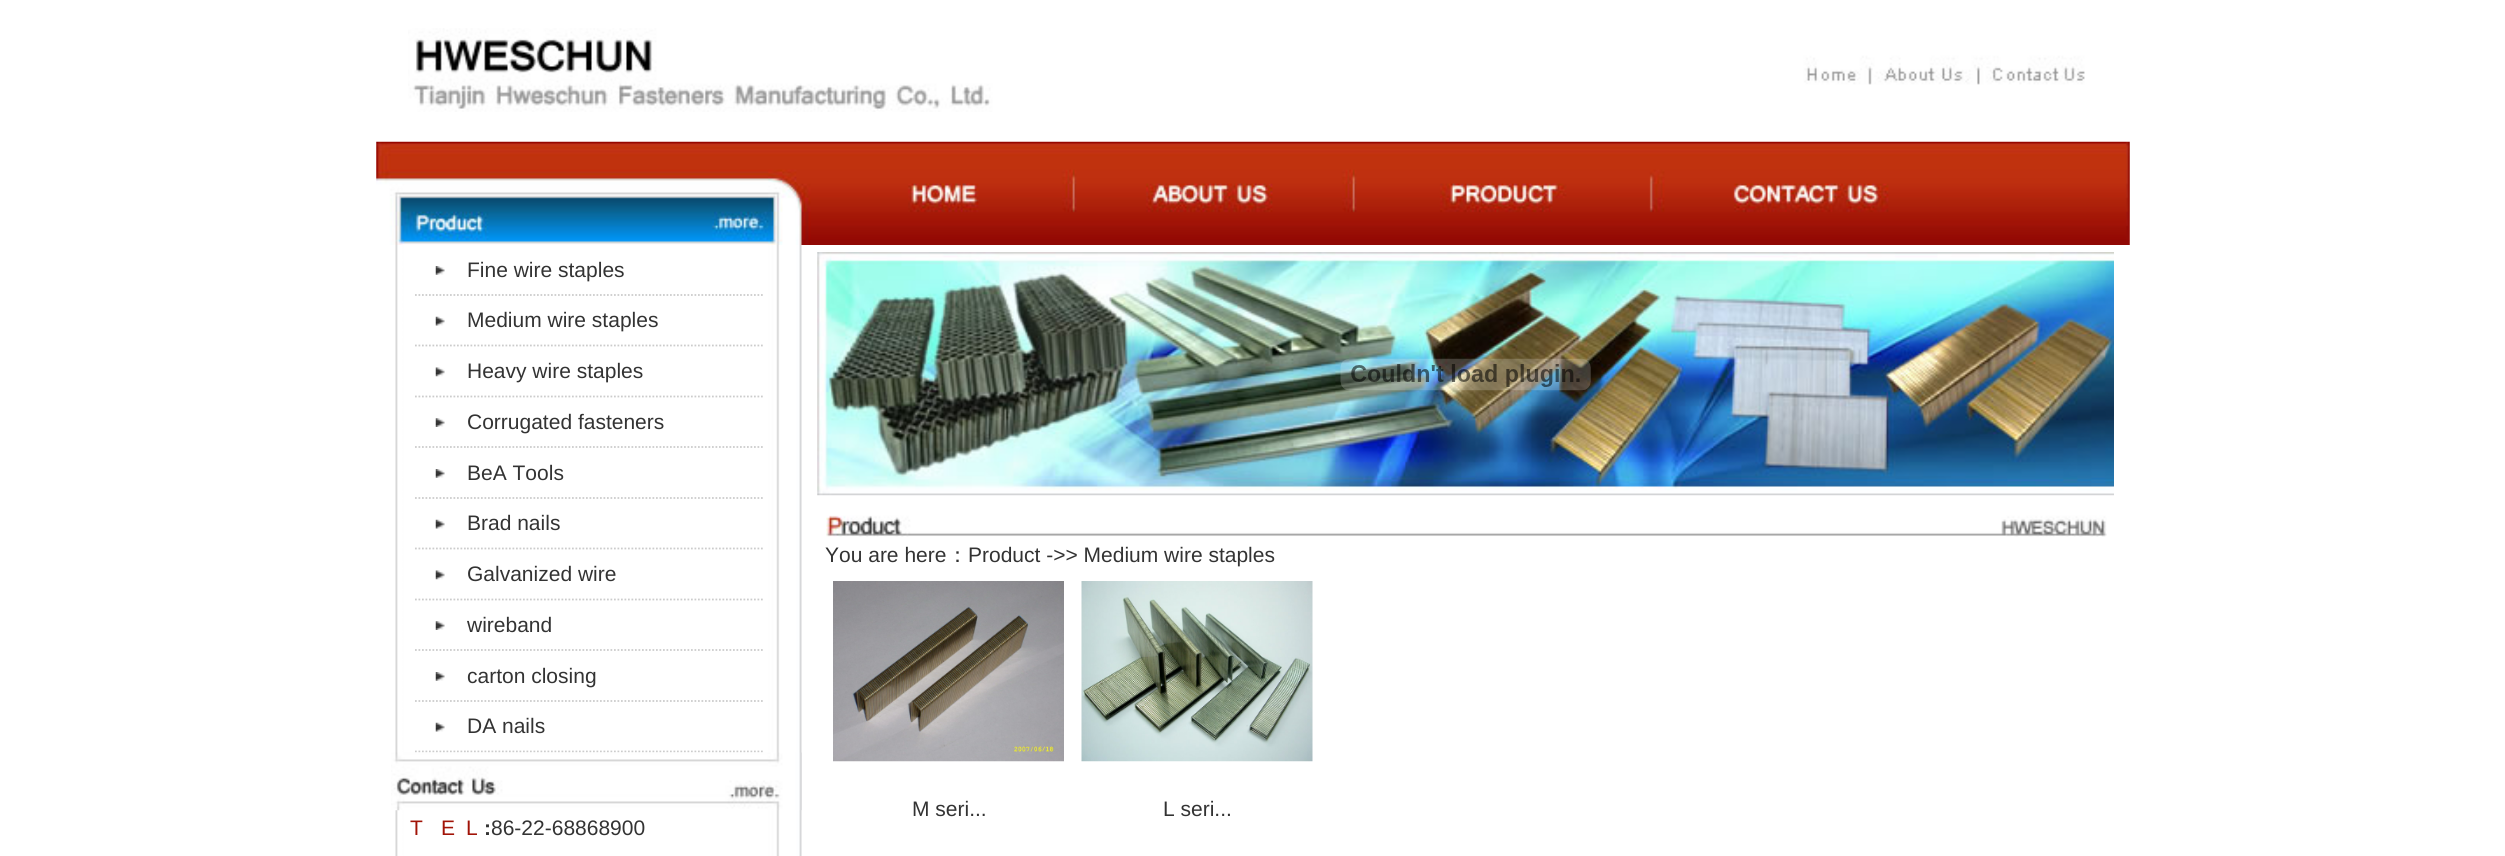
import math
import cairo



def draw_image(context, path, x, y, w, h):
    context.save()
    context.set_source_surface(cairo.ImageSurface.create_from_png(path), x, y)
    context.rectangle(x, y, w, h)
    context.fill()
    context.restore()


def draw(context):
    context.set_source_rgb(1, 1, 1)
    context.paint()
    draw_image(context, "images/1.png", 408, 28, 1677, 84)
    draw_image(context, "images/2.png", 376, 141, 1754, 104)
    draw_image(context, "images/3.png", 395, 245, 407, 611)
    context.new_path()
    context.move_to(415, 295)
    context.line_to(467, 295)
    context.set_source_rgb(204 / 255, 204 / 255, 204 / 255)
    context.set_line_width(1.8)
    context.set_dash([1.75, 1.75])
    context.stroke()
    draw_image(context, "images/4.png", 435, 266, 10, 9)
    context.new_path()
    context.move_to(467, 295)
    context.line_to(763, 295)
    context.stroke()
    context.new_path()
    context.move_to(415, 345.5)
    context.line_to(467, 345.5)
    context.stroke()
    draw_image(context, "images/5.png", 435, 316, 10, 10)
    context.new_path()
    context.move_to(467, 345.5)
    context.line_to(763, 345.5)
    context.stroke()
    context.new_path()
    context.move_to(415, 396.5)
    context.line_to(467, 396.5)
    context.stroke()
    draw_image(context, "images/6.png", 435, 367, 10, 10)
    context.new_path()
    context.move_to(467, 396.5)
    context.line_to(763, 396.5)
    context.stroke()
    context.new_path()
    context.move_to(415, 447)
    context.line_to(467, 447)
    context.stroke()
    draw_image(context, "images/7.png", 435, 418, 10, 9)
    context.new_path()
    context.move_to(467, 447)
    context.line_to(763, 447)
    context.stroke()
    context.new_path()
    context.move_to(415, 498)
    context.line_to(467, 498)
    context.stroke()
    draw_image(context, "images/4.png", 435, 469, 10, 9)
    context.new_path()
    context.move_to(467, 498)
    context.line_to(763, 498)
    context.stroke()
    context.new_path()
    context.move_to(415, 548.5)
    context.line_to(467, 548.5)
    context.stroke()
    draw_image(context, "images/5.png", 435, 519, 10, 10)
    context.new_path()
    context.move_to(467, 548.5)
    context.line_to(763, 548.5)
    context.stroke()
    context.new_path()
    context.move_to(415, 599.5)
    context.line_to(467, 599.5)
    context.stroke()
    draw_image(context, "images/6.png", 435, 570, 10, 10)
    context.new_path()
    context.move_to(467, 599.5)
    context.line_to(763, 599.5)
    context.stroke()
    context.new_path()
    context.move_to(415, 650)
    context.line_to(467, 650)
    context.stroke()
    draw_image(context, "images/7.png", 435, 621, 10, 9)
    context.new_path()
    context.move_to(467, 650)
    context.line_to(763, 650)
    context.stroke()
    context.new_path()
    context.move_to(415, 701)
    context.line_to(467, 701)
    context.stroke()
    draw_image(context, "images/4.png", 435, 672, 10, 9)
    context.new_path()
    context.move_to(467, 701)
    context.line_to(763, 701)
    context.stroke()
    context.new_path()
    context.move_to(415, 751.5)
    context.line_to(467, 751.5)
    context.stroke()
    draw_image(context, "images/5.png", 435, 722, 10, 10)
    context.new_path()
    context.move_to(467, 751.5)
    context.line_to(763, 751.5)
    context.stroke()
    draw_image(context, "images/8.png", 391, 752, 411, 59)
    draw_image(context, "images/9.png", 817, 252, 1297, 244)
    draw_image(context, "images/10.png", 1340, 358, 251, 33)
    draw_image(context, "images/11.png", 826, 515, 1281, 22)
    draw_image(context, "images/12.png", 833, 581, 231, 181)
    draw_image(context, "images/13.png", 1081, 581, 232, 181)
    context.select_font_face("Liberation Sans")
    context.set_font_size(21)
    context.set_source_rgb(51 / 255, 51 / 255, 51 / 255)
    context.move_to(467, 277)
    context.show_text("Fine wire staples")
    context.move_to(467, 327)
    context.show_text("Medium wire staples")
    context.move_to(467, 378)
    context.show_text("Heavy wire staples")
    context.move_to(467, 429)
    context.show_text("Corrugated fasteners")
    context.move_to(467, 480)
    context.show_text("BeA Tools")
    context.move_to(467, 530)
    context.show_text("Brad nails")
    context.move_to(467, 581)
    context.show_text("Galvanized wire")
    context.move_to(467, 632)
    context.show_text("wireband")
    context.move_to(467, 683)
    context.show_text("carton closing")
    context.move_to(467, 733)
    context.show_text("DA nails")
    context.set_source_rgb(161 / 255, 19 / 255, 7 / 255)
    context.move_to(410, 835)
    context.show_text("T")
    context.move_to(441, 835)
    context.show_text("E")
    context.move_to(466, 835)
    context.show_text("L")
    context.select_font_face("Liberation Sans", cairo.FontSlant.NORMAL, cairo.FontWeight.BOLD)
    context.set_source_rgb(51 / 255, 51 / 255, 51 / 255)
    context.move_to(484, 835)
    context.show_text(":")
    context.select_font_face("Liberation Sans")
    context.move_to(491, 835)
    context.show_text("86-22-68868900")
    context.move_to(825, 562)
    context.show_text("You are here")
    context.select_font_face("WenQuanYi Zen Hei Medium")
    context.move_to(947, 562)
    context.show_text("：")
    context.select_font_face("Liberation Sans")
    context.move_to(968, 562)
    context.show_text("Product ->> Medium wire staples")
    context.move_to(912, 816)
    context.show_text("M seri...")
    context.move_to(1163, 816)
    context.show_text("L seri...")


surface = cairo.ImageSurface(cairo.Format.RGB24, 2505, 856)
context = cairo.Context(surface)
options = cairo.FontOptions()
options.set_hint_metrics(cairo.HintMetrics.OFF)
options.set_hint_style(cairo.HintStyle.NONE)
context.set_font_options(options)
context.set_miter_limit(4)
draw(context)
surface.write_to_png("out.png")
